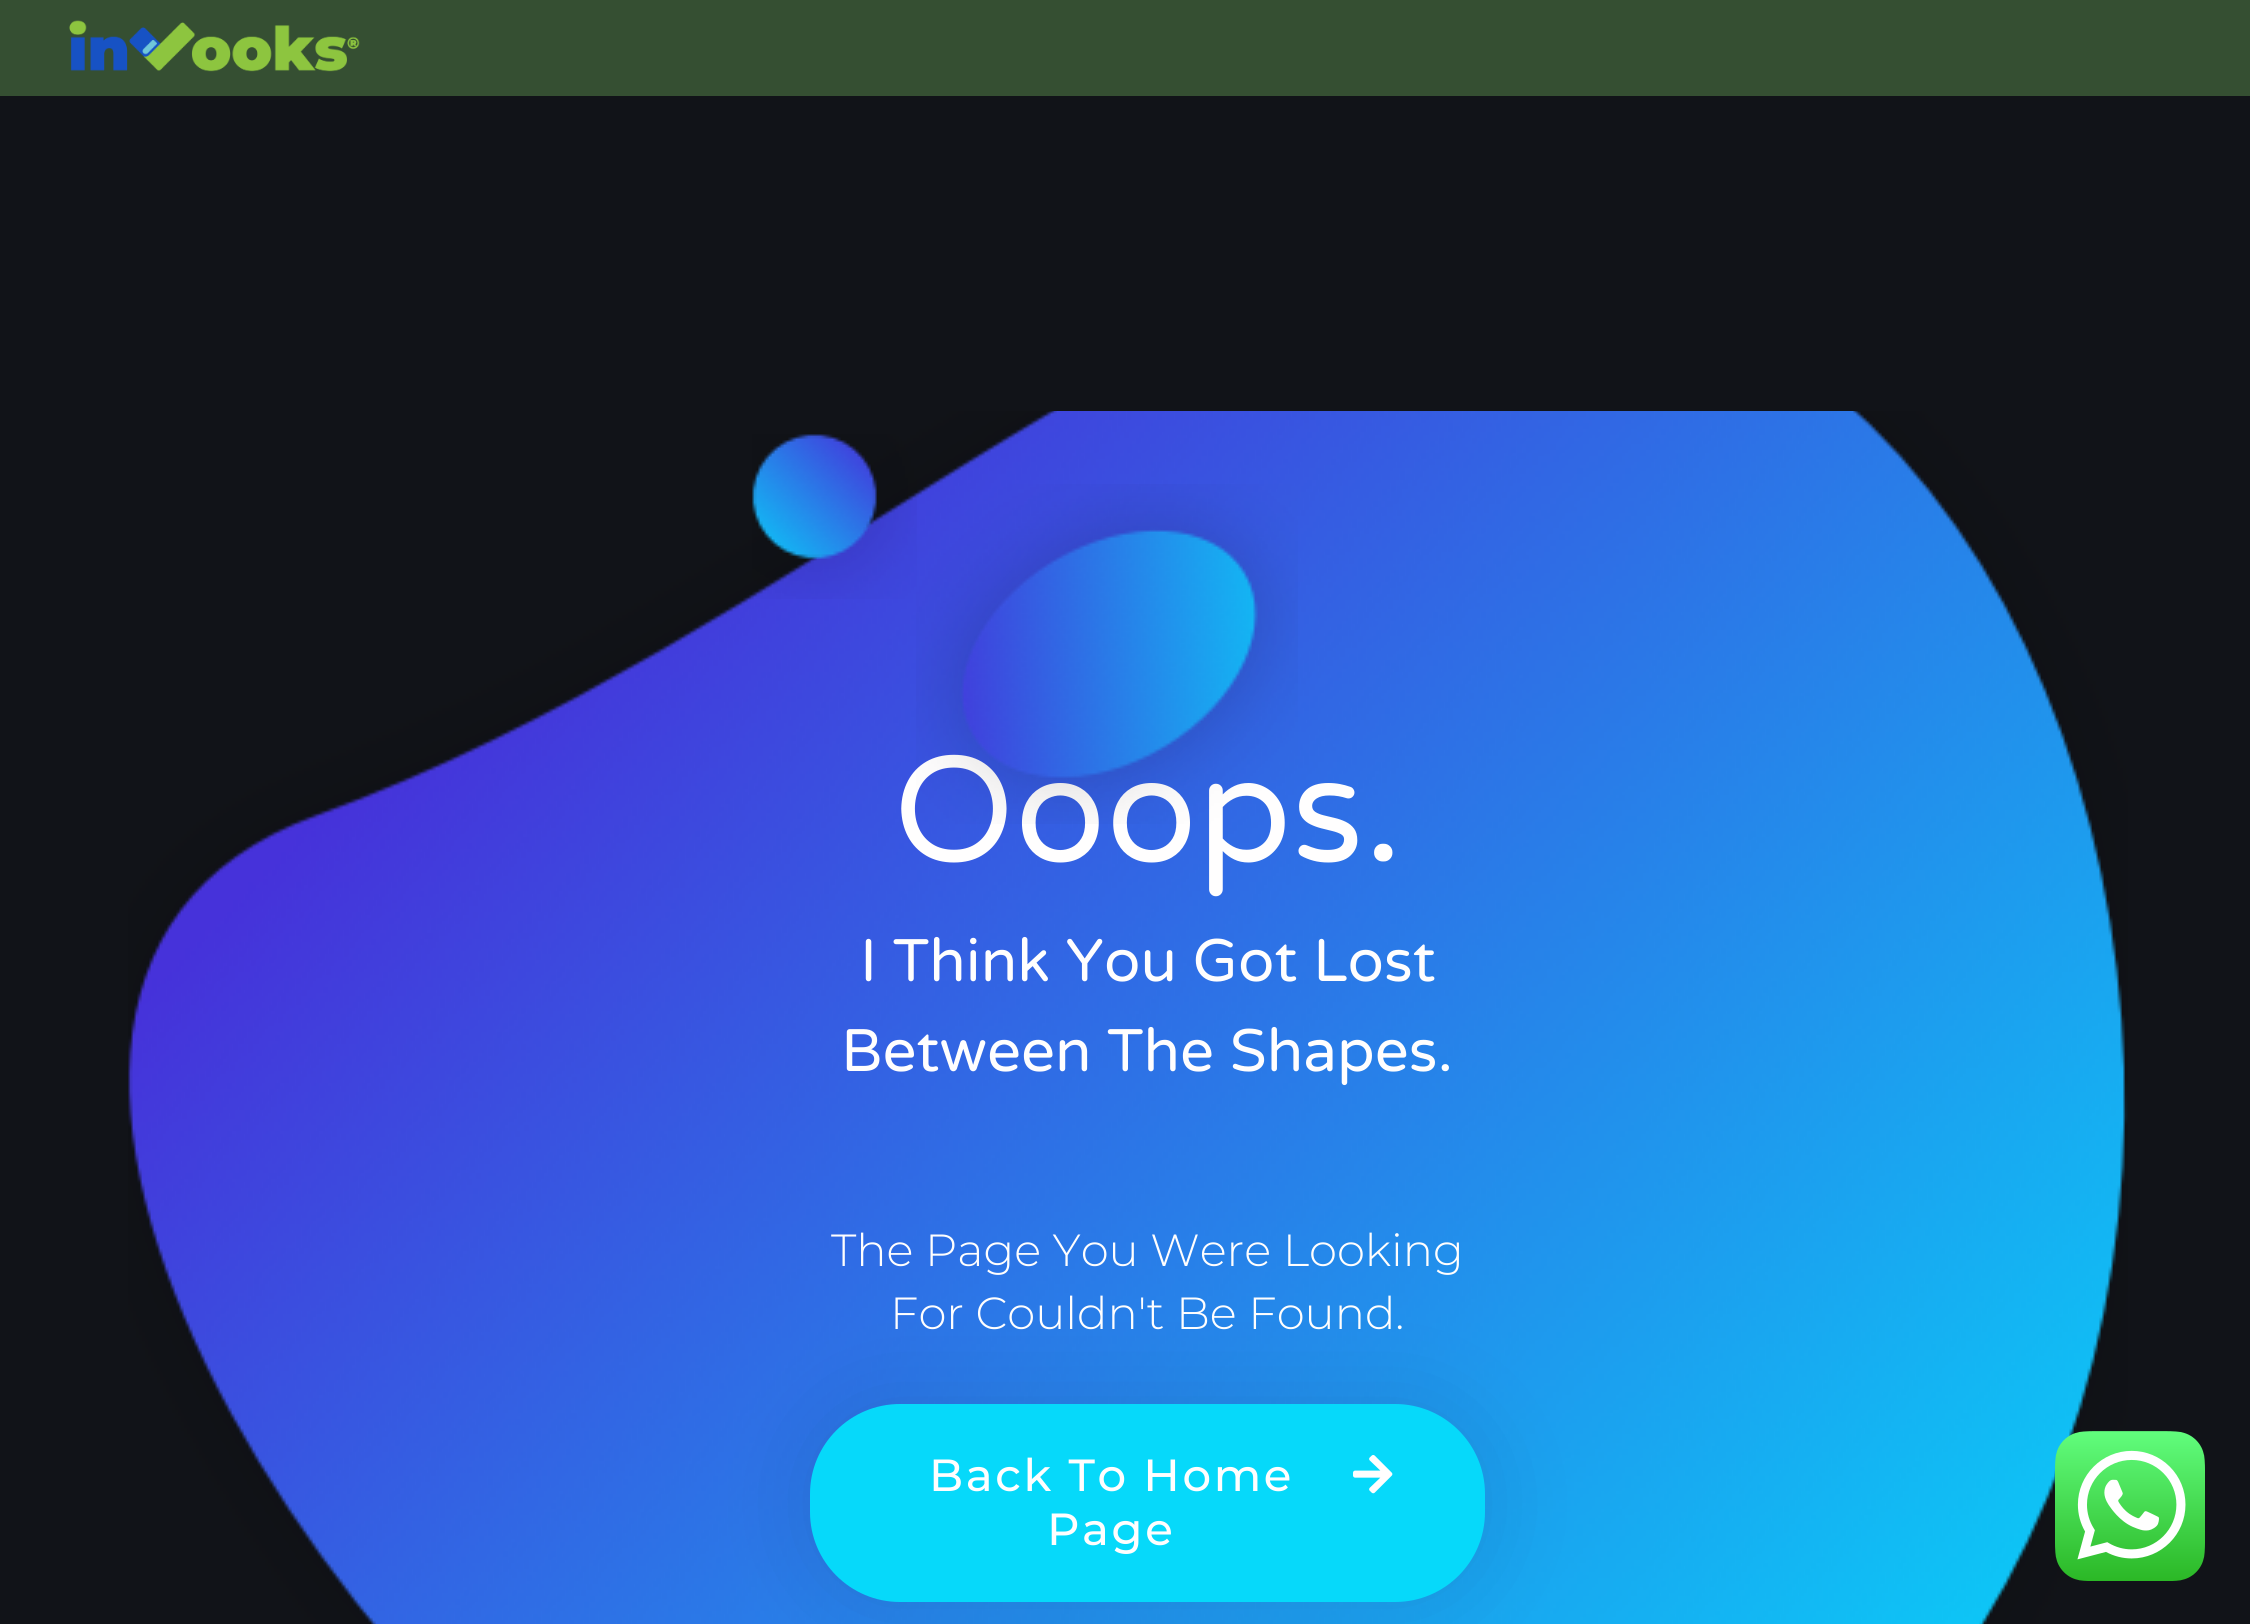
import math
import cairo



def draw_spaced(context, x, y, s, letter, word):
    context.move_to(x, y)
    for ch in s:
        context.show_text(ch)
        context.rel_move_to(letter + word * (ch == ' '), 0)


def rounded_rect(context, x, y, w, h, r):
    context.new_sub_path()
    for i, (u, v) in enumerate([(x + w - r, y + h - r), (x + r, y + h - r), (x + r, y + r), (x + w - r, y + r)]):
        context.arc(u, v, r, i * math.pi / 2, (i + 1) * math.pi / 2)
    context.close_path()


def draw_shadow(context, x, y, w, h, r, blur, alpha):
    context.push_group_with_content(cairo.Content.ALPHA)
    context.set_operator(cairo.Operator.SOURCE)
    for i in range(15, -16, -2):
        e = blur * i / 6
        if min(w, h) + 2 * e > 0:
            context.set_source_rgba(0, 0, 0, alpha * math.erfc((i - 1) / 8.5) / 2)
            rounded_rect(context, x - e, y - e, w + 2 * e, h + 2 * e, max(0, min(r + e + blur * .6, min(w, h) / 2 + e)))
            context.fill()
    context.mask(context.pop_group())


def draw_image(context, path, x, y, w, h):
    context.save()
    context.set_source_surface(cairo.ImageSurface.create_from_png(path), x, y)
    context.rectangle(x, y, w, h)
    context.fill()
    context.restore()


def draw(context):
    context.set_source_rgb(17 / 255, 19 / 255, 24 / 255)
    context.paint()
    context.set_source_rgb(53 / 255, 79 / 255, 50 / 255)
    context.rectangle(0, 0, 2250, 96)
    context.fill()
    draw_image(context, "images/1.png", 69, 20, 291, 52)
    draw_image(context, "images/4.png", 128, 411, 2000, 1213)
    context.set_source_rgb(0, 0, 0)
    draw_shadow(context, 810, 1404, 675, 198, 90, 45, 0.1)
    context.set_source_rgb(6 / 255, 217 / 255, 250 / 255)
    rounded_rect(context, 810, 1404, 675, 198, 90)
    context.fill()
    draw_image(context, "images/5.png", 1353, 1455, 40, 39)
    draw_image(context, "images/6.png", 2055, 1431, 150, 150)
    context.select_font_face("Varela Round")
    context.set_font_size(150)
    context.set_source_rgb(1, 254 / 255, 254 / 255)
    context.move_to(893, 861)
    context.show_text("Ooops.")
    draw_image(context, "images/3.png", 916, 484, 382, 340)
    draw_image(context, "images/2.png", 752, 434, 165, 165)
    context.set_font_size(60)
    context.move_to(860, 981)
    context.show_text("I Think You Got Lost")
    context.move_to(841, 1071)
    context.show_text("Between The Shapes.")
    context.select_font_face("Montserrat Light")
    context.set_font_size(45)
    context.move_to(831, 1266)
    context.show_text("The Page You Were Looking")
    context.move_to(890, 1329)
    context.show_text("For Couldn't Be Found.")
    context.select_font_face("Montserrat Medium")
    draw_spaced(context, 929, 1491, "Back To Home", 2.6, 0)
    draw_spaced(context, 1047, 1545, "Page", 2.6, 0)


surface = cairo.ImageSurface(cairo.Format.RGB24, 2250, 1624)
context = cairo.Context(surface)
options = cairo.FontOptions()
options.set_hint_metrics(cairo.HintMetrics.OFF)
options.set_hint_style(cairo.HintStyle.NONE)
context.set_font_options(options)
context.set_miter_limit(4)
draw(context)
surface.write_to_png("out.png")
